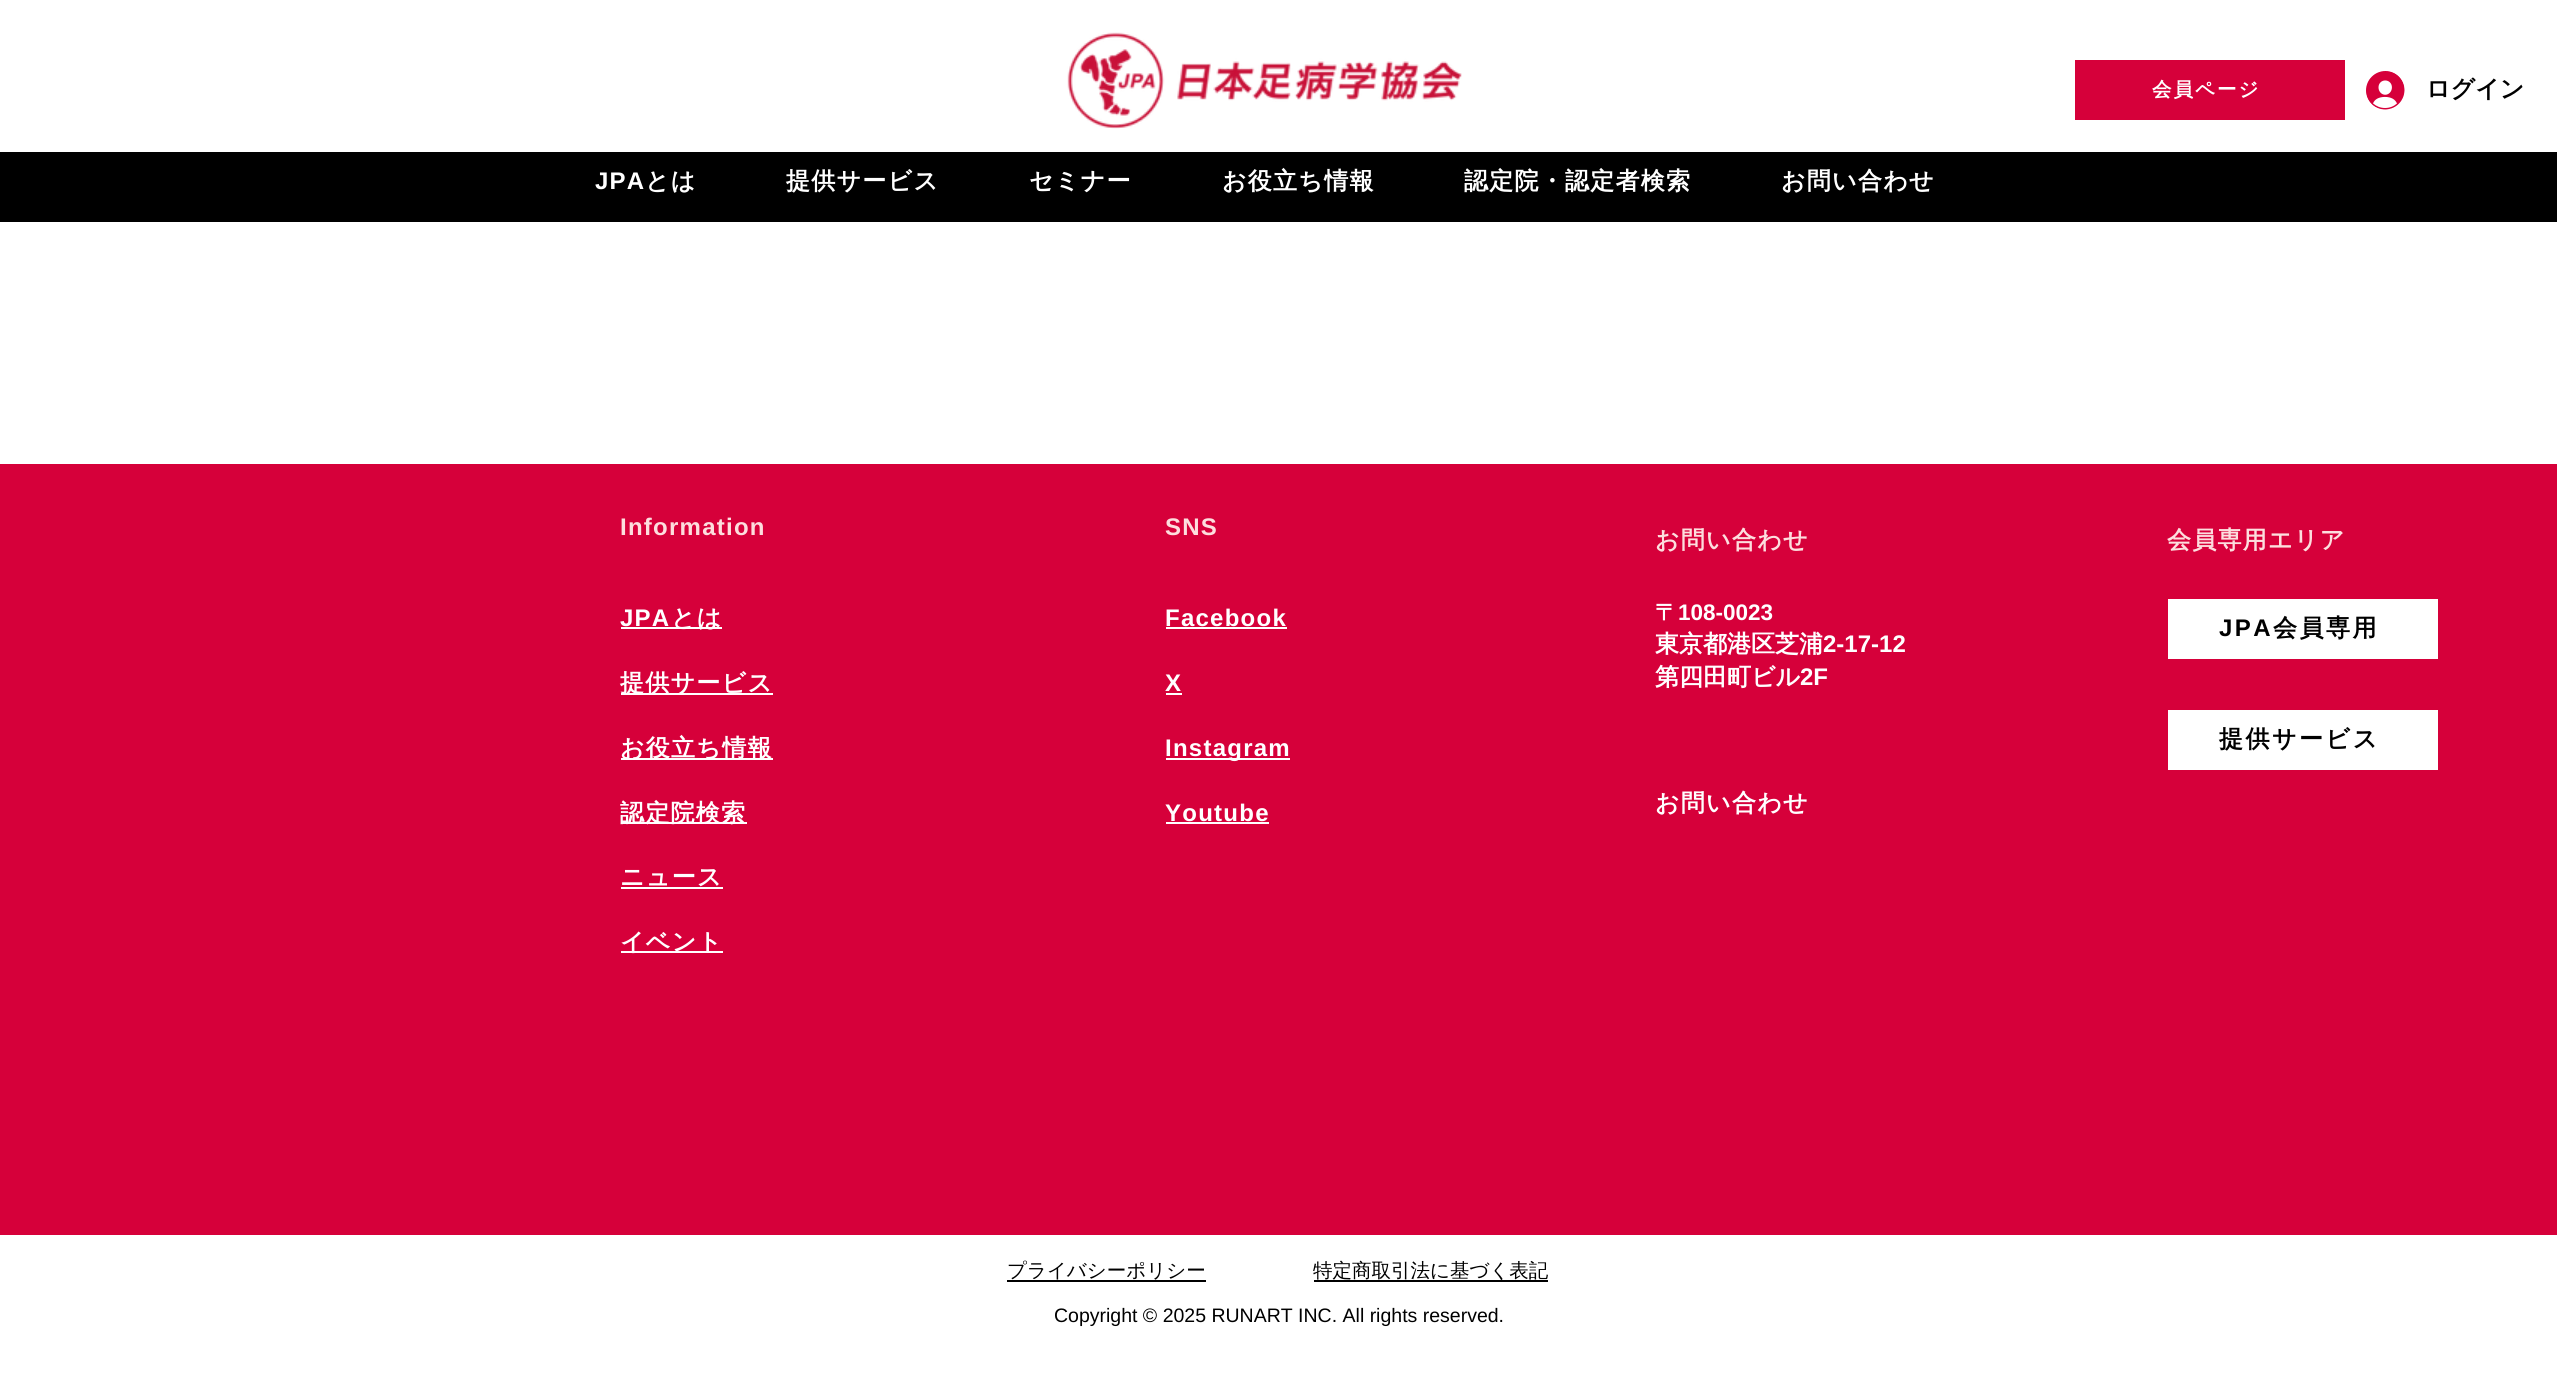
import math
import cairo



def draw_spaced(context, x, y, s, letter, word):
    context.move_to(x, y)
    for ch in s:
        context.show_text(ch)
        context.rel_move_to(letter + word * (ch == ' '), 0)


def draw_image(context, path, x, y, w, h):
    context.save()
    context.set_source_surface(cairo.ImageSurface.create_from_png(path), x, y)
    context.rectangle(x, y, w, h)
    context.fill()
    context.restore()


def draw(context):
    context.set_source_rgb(1, 1, 1)
    context.paint()
    draw_image(context, "images/1.png", 1067, 32, 395, 97)
    context.set_source_rgb(214 / 255, 0, 58 / 255)
    context.rectangle(2075, 60, 270, 60)
    context.fill()
    draw_image(context, "images/2.png", 2366, 71, 39, 39)
    context.set_source_rgb(0, 0, 0)
    context.rectangle(0, 152, 2557, 70)
    context.fill()
    context.set_source_rgb(214 / 255, 0, 58 / 255)
    context.rectangle(0, 464, 2557, 771)
    context.fill()
    context.set_source_rgb(1, 1, 1)
    context.rectangle(621, 627, 101, 2)
    context.fill()
    context.rectangle(621, 693, 152, 2)
    context.fill()
    context.rectangle(621, 758, 152, 2)
    context.fill()
    context.rectangle(621, 822, 126, 2)
    context.fill()
    context.rectangle(621, 887, 102, 2)
    context.fill()
    context.rectangle(621, 951, 102, 2)
    context.fill()
    context.rectangle(1166, 627, 121, 2)
    context.fill()
    context.rectangle(1166, 693, 16, 2)
    context.fill()
    context.rectangle(1166, 758, 124, 2)
    context.fill()
    context.rectangle(1166, 822, 103, 2)
    context.fill()
    context.rectangle(2168, 599, 270, 60)
    context.fill()
    context.rectangle(2168, 710, 270, 60)
    context.fill()
    context.set_source_rgb(0, 0, 0)
    context.rectangle(1007, 1280, 199, 2)
    context.fill()
    context.rectangle(1314, 1280, 234, 2)
    context.fill()
    context.select_font_face("WenQuanYi Zen Hei", cairo.FontSlant.NORMAL, cairo.FontWeight.BOLD)
    context.set_font_size(19.5)
    context.set_source_rgb(1, 1, 1)
    draw_spaced(context, 2152, 96, "会員ページ", 2, 0)
    context.set_font_size(24)
    context.set_source_rgb(0, 0, 0)
    context.move_to(2426, 97)
    context.show_text("ログイン")
    context.select_font_face("Liberation Sans", cairo.FontSlant.NORMAL, cairo.FontWeight.BOLD)
    context.set_source_rgb(1, 1, 1)
    draw_spaced(context, 595, 189, "JPA", 1.25, 0)
    context.select_font_face("WenQuanYi Zen Hei", cairo.FontSlant.NORMAL, cairo.FontWeight.BOLD)
    draw_spaced(context, 645, 189, "とは", 1.25, 0)
    draw_spaced(context, 786, 189, "提供サービス", 1.25, 0)
    draw_spaced(context, 1029, 189, "セミナー", 1.25, 0)
    draw_spaced(context, 1222, 189, "お役立ち情報", 1.25, 0)
    draw_spaced(context, 1464, 189, "認定院・認定者検索", 1.25, 0)
    draw_spaced(context, 1781, 189, "お問い合わせ", 1.25, 0)
    context.select_font_face("Liberation Sans", cairo.FontSlant.NORMAL, cairo.FontWeight.BOLD)
    context.set_source_rgb(253 / 255, 222 / 255, 222 / 255)
    draw_spaced(context, 620, 535, "Information", 1.25, 0)
    context.set_source_rgb(1, 1, 1)
    draw_spaced(context, 620, 626, "JPA", 1.25, 0)
    context.select_font_face("WenQuanYi Zen Hei", cairo.FontSlant.NORMAL, cairo.FontWeight.BOLD)
    draw_spaced(context, 671, 626, "とは", 1.25, 0)
    draw_spaced(context, 620, 691, "提供サービス", 1.25, 0)
    draw_spaced(context, 620, 756, "お役立ち情報", 1.25, 0)
    draw_spaced(context, 620, 821, "認定院検索", 1.25, 0)
    draw_spaced(context, 620, 885, "ニュース", 1.25, 0)
    draw_spaced(context, 620, 950, "イベント", 1.25, 0)
    context.select_font_face("Liberation Sans", cairo.FontSlant.NORMAL, cairo.FontWeight.BOLD)
    context.set_source_rgb(253 / 255, 222 / 255, 222 / 255)
    draw_spaced(context, 1165, 535, "SNS", 1.25, 0)
    context.set_source_rgb(1, 1, 1)
    draw_spaced(context, 1165, 626, "Facebook", 1.25, 0)
    draw_spaced(context, 1165, 691, "X", 1.25, 0)
    draw_spaced(context, 1165, 756, "Instagram", 1.25, 0)
    draw_spaced(context, 1165, 821, "Youtube", 1.25, 0)
    context.select_font_face("WenQuanYi Zen Hei", cairo.FontSlant.NORMAL, cairo.FontWeight.BOLD)
    context.set_source_rgb(253 / 255, 222 / 255, 222 / 255)
    draw_spaced(context, 1655, 548, "お問い合わせ", 1.25, 0)
    context.set_font_size(22.5)
    context.set_source_rgb(1, 1, 1)
    context.move_to(1655, 620)
    context.show_text("〒")
    context.select_font_face("Liberation Sans", cairo.FontSlant.NORMAL, cairo.FontWeight.BOLD)
    context.move_to(1678, 620)
    context.show_text("108-0023")
    context.select_font_face("WenQuanYi Zen Hei", cairo.FontSlant.NORMAL, cairo.FontWeight.BOLD)
    context.set_font_size(24)
    context.move_to(1655, 652)
    context.show_text("東京都港区芝浦")
    context.select_font_face("Liberation Sans", cairo.FontSlant.NORMAL, cairo.FontWeight.BOLD)
    context.move_to(1823, 652)
    context.show_text("2-17-12")
    context.select_font_face("WenQuanYi Zen Hei", cairo.FontSlant.NORMAL, cairo.FontWeight.BOLD)
    context.move_to(1655, 685)
    context.show_text("第四田町ビル")
    context.select_font_face("Liberation Sans", cairo.FontSlant.NORMAL, cairo.FontWeight.BOLD)
    context.move_to(1800, 685)
    context.show_text("2F")
    context.select_font_face("WenQuanYi Zen Hei", cairo.FontSlant.NORMAL, cairo.FontWeight.BOLD)
    draw_spaced(context, 1655, 811, "お問い合わせ", 1.25, 0)
    context.set_source_rgb(253 / 255, 222 / 255, 222 / 255)
    draw_spaced(context, 2167, 548, "会員専用エリア", 1.25, 0)
    context.select_font_face("Liberation Sans", cairo.FontSlant.NORMAL, cairo.FontWeight.BOLD)
    context.set_source_rgb(0, 0, 0)
    draw_spaced(context, 2219, 636, "JPA", 2.5, 0)
    context.select_font_face("WenQuanYi Zen Hei", cairo.FontSlant.NORMAL, cairo.FontWeight.BOLD)
    draw_spaced(context, 2273, 636, "会員専用", 2.5, 0)
    draw_spaced(context, 2219, 747, "提供サービス", 2.5, 0)
    context.select_font_face("WenQuanYi Zen Hei Medium")
    context.set_font_size(19.5)
    context.move_to(1007, 1277)
    context.show_text("プライバシーポリシー")
    context.move_to(1313, 1277)
    context.show_text("特定商取引法に基づく表記")
    context.select_font_face("Liberation Sans")
    context.move_to(1054, 1322)
    context.show_text("Copyright © 2025 RUNART INC. All rights reserved.")


surface = cairo.ImageSurface(cairo.Format.RGB24, 2557, 1391)
context = cairo.Context(surface)
options = cairo.FontOptions()
options.set_hint_metrics(cairo.HintMetrics.OFF)
options.set_hint_style(cairo.HintStyle.NONE)
context.set_font_options(options)
context.set_miter_limit(4)
draw(context)
surface.write_to_png("out.png")
